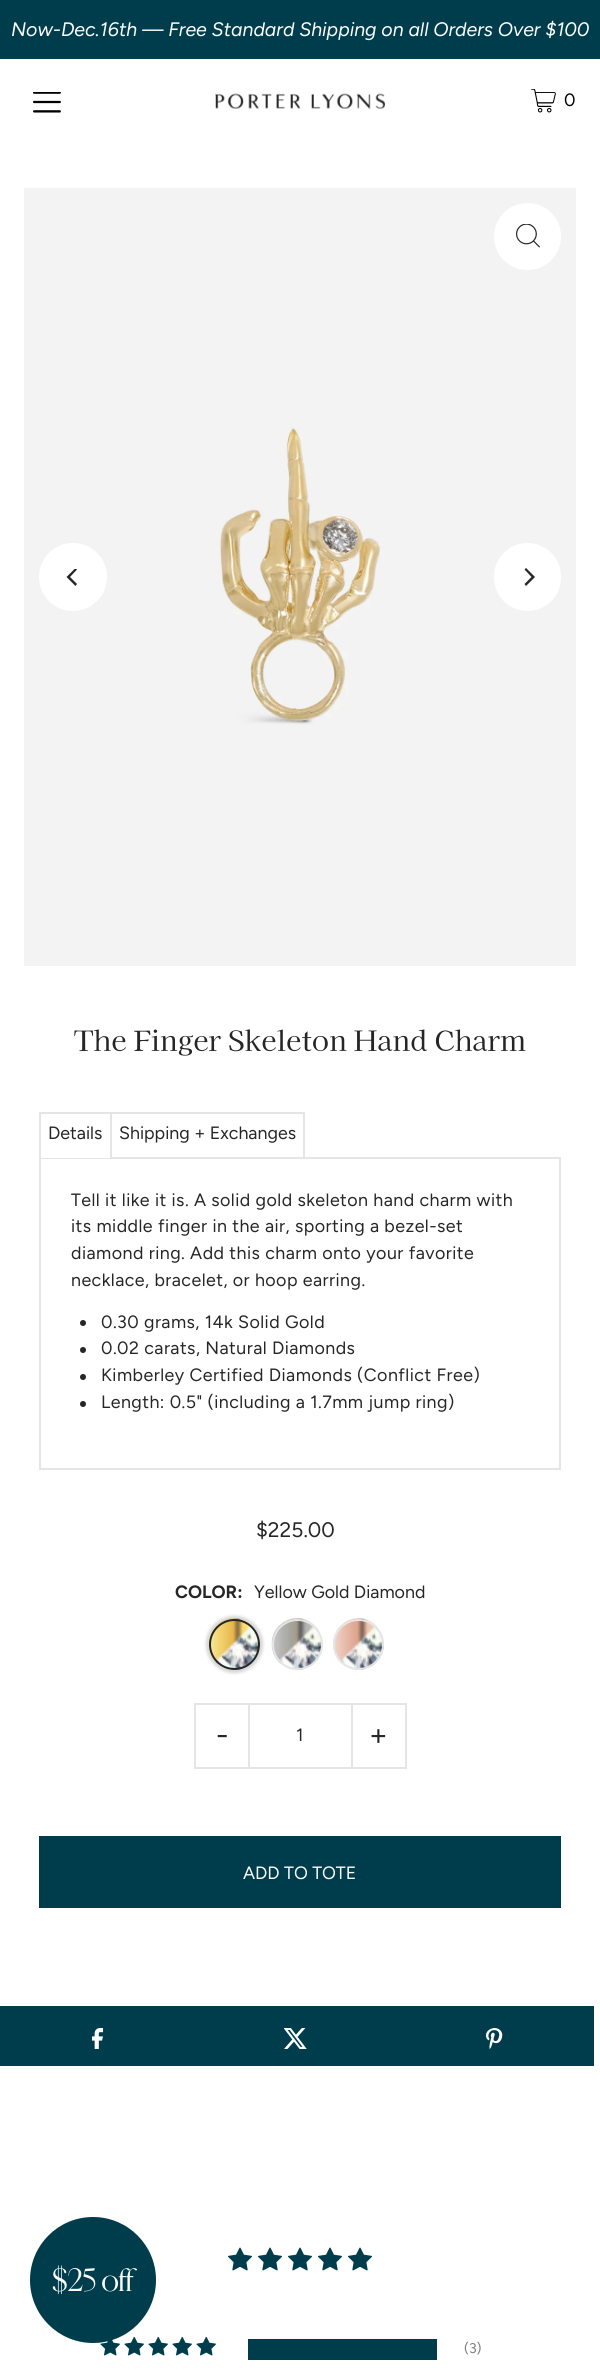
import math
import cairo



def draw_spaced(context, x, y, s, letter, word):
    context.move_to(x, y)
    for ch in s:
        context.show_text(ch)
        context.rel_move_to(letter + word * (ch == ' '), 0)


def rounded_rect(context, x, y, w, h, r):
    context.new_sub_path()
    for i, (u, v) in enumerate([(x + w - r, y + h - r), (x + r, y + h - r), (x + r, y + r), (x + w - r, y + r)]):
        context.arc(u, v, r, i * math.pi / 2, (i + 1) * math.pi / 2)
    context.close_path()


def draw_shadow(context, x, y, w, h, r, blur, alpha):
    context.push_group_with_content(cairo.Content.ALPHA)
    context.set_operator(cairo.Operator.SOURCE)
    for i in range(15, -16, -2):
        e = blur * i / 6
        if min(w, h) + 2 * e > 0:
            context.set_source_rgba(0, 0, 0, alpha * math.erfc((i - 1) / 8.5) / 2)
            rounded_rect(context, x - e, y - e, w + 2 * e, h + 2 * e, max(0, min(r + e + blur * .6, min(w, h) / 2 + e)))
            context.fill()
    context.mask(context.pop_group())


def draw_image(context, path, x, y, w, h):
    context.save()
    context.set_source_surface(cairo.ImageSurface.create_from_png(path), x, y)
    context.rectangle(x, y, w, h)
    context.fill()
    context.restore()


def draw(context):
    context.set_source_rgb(1, 1, 1)
    context.paint()
    context.set_source_rgb(0, 61 / 255, 76 / 255)
    context.rectangle(0, 0, 600, 59)
    context.fill()
    draw_image(context, "images/1.png", 33, 92, 28, 21)
    draw_image(context, "images/2.png", 215, 93, 170, 16)
    draw_image(context, "images/3.png", 531, 89, 25, 24)
    draw_image(context, "images/4.png", 24, 188, 552, 778)
    context.set_source_rgb(1, 1, 1)
    context.arc(527.5, 236.5, 33.5, 0, 2 * math.pi)
    context.fill()
    draw_image(context, "images/5.png", 516, 224, 24, 24)
    context.arc(73, 577, 34, 0, 2 * math.pi)
    context.fill()
    context.save()
    context.rectangle(65, 569, 18, 18)
    context.clip()
    context.set_source_rgb(38 / 255, 38 / 255, 38 / 255)
    context.new_path()
    context.move_to(66.5, 577)
    context.line_to(75.5, 586)
    context.line_to(77, 584)
    context.line_to(70, 577)
    context.line_to(77, 569.5)
    context.line_to(75.5, 568)
    context.close_path()
    context.fill()
    context.restore()
    rounded_rect(context, 494, 543, 67, 68, 33.5)
    context.fill()
    context.set_source_rgb(38 / 255, 38 / 255, 38 / 255)
    context.new_path()
    context.move_to(535, 577)
    context.line_to(526, 568)
    context.line_to(524.5, 569.5)
    context.line_to(531.5, 577)
    context.line_to(524.5, 584)
    context.line_to(526, 586)
    context.close_path()
    context.fill()
    context.set_source_rgb(229 / 255, 229 / 255, 229 / 255)
    context.rectangle(39, 1112, 266, 2)
    context.fill()
    context.rectangle(110, 1112, 2, 45)
    context.fill()
    context.rectangle(39, 1112, 2, 45)
    context.fill()
    context.rectangle(40, 1158, 520, 311)
    context.stroke()
    context.set_source_rgb(1, 1, 1)
    context.rectangle(41, 1157, 69, 1)
    context.fill()
    context.set_source_rgb(229 / 255, 229 / 255, 229 / 255)
    context.rectangle(303, 1112, 2, 45)
    context.fill()
    context.set_source_rgb(38 / 255, 38 / 255, 38 / 255)
    context.arc(83, 1323, 3, 0, 2 * math.pi)
    context.fill()
    context.arc(83, 1350, 3, 0, 2 * math.pi)
    context.fill()
    context.arc(83, 1377, 3, 0, 2 * math.pi)
    context.fill()
    context.arc(83, 1404, 3, 0, 2 * math.pi)
    context.fill()
    context.save()
    context.set_fill_rule(cairo.FillRule.EVEN_ODD)
    context.new_path()
    context.move_to(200, 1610)
    context.line_to(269, 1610)
    context.line_to(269, 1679)
    context.line_to(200, 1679)
    context.close_path()
    context.move_to(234.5, 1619)
    context.curve_to(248.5, 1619, 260, 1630.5, 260, 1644.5)
    context.curve_to(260, 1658.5, 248.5, 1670, 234.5, 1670)
    context.curve_to(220.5, 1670, 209, 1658.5, 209, 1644.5)
    context.curve_to(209, 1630.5, 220.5, 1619, 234.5, 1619)
    context.close_path()
    context.clip()
    context.set_source_rgb(214 / 255, 214 / 255, 214 / 255)
    draw_shadow(context, 206, 1616, 57, 57, 28.5, 1.5, 1)
    context.restore()
    draw_image(context, "images/6.png", 208, 1618, 52, 52)
    context.arc(234.5, 1644.5, 24.5, 0, 2 * math.pi)
    context.stroke()
    draw_image(context, "images/7.png", 271, 1618, 52, 52)
    context.arc(297.5, 1644.5, 24.5, 0, 2 * math.pi)
    context.set_source_rgb(229 / 255, 229 / 255, 229 / 255)
    context.stroke()
    draw_image(context, "images/8.png", 333, 1618, 51, 52)
    context.arc(358.5, 1644.5, 24.5, 0, 2 * math.pi)
    context.stroke()
    context.rectangle(194, 1703, 57, 2)
    context.fill()
    context.rectangle(194, 1767, 57, 2)
    context.fill()
    context.rectangle(194, 1703, 2, 66)
    context.fill()
    context.rectangle(249, 1704, 103, 64)
    context.stroke()
    context.rectangle(350, 1703, 57, 2)
    context.fill()
    context.rectangle(405, 1703, 2, 66)
    context.fill()
    context.rectangle(350, 1767, 57, 2)
    context.fill()
    context.set_source_rgb(0, 61 / 255, 76 / 255)
    context.rectangle(39, 1836, 522, 72)
    context.fill()
    context.rectangle(0, 2006, 594, 60)
    context.fill()
    draw_image(context, "images/9.png", 92, 2028, 12, 21)
    draw_image(context, "images/10.png", 284, 2028, 23, 21)
    draw_image(context, "images/11.png", 486, 2028, 17, 21)
    draw_image(context, "images/12.png", 228, 2247, 24, 24)
    draw_image(context, "images/12.png", 258, 2247, 24, 24)
    draw_image(context, "images/12.png", 288, 2247, 24, 24)
    draw_image(context, "images/12.png", 318, 2247, 24, 24)
    draw_image(context, "images/12.png", 348, 2247, 24, 24)
    draw_image(context, "images/13.png", 100, 2340, 20, 16)
    draw_image(context, "images/14.png", 124, 2336, 20, 20)
    draw_image(context, "images/14.png", 148, 2336, 20, 20)
    draw_image(context, "images/14.png", 172, 2336, 20, 20)
    draw_image(context, "images/14.png", 196, 2336, 20, 20)
    context.rectangle(248, 2339, 189, 21)
    context.fill()
    context.arc(93, 2280, 63, 0, 2 * math.pi)
    context.fill()
    context.select_font_face("Figtree", cairo.FontSlant.ITALIC)
    context.set_font_size(19.5)
    context.set_source_rgb(1, 1, 1)
    context.move_to(11, 36)
    context.show_text("Now-Dec.16th — Free Standard Shipping on all Orders Over $100")
    context.select_font_face("Figtree")
    context.set_font_size(17.85)
    context.set_source_rgb(0, 0, 0)
    draw_spaced(context, 564, 106, "0", 0.45, 0)
    context.select_font_face("Kaisei Decol")
    context.set_font_size(28)
    context.set_source_rgb(38 / 255, 38 / 255, 38 / 255)
    context.move_to(74, 1051)
    context.show_text("The Finger Skeleton Hand Charm")
    context.select_font_face("Figtree")
    context.set_font_size(17.85)
    context.move_to(48, 1139)
    context.show_text("Details")
    context.move_to(119, 1139)
    context.show_text("Shipping + Exchanges")
    draw_spaced(context, 71, 1206, "Tell it like it is. A solid gold skeleton hand charm with", 0.45, 0)
    draw_spaced(context, 71, 1232, "its middle finger in the air, sporting a bezel-set", 0.45, 0)
    draw_spaced(context, 71, 1259, "diamond ring. Add this charm onto your favorite", 0.45, 0)
    draw_spaced(context, 71, 1286, "necklace, bracelet, or hoop earring.", 0.45, 0)
    draw_spaced(context, 101, 1328, "0.30 grams, 14k Solid Gold", 0.45, 0)
    draw_spaced(context, 101, 1354, "0.02 carats, Natural Diamonds", 0.45, 0)
    draw_spaced(context, 101, 1381, "Kimberley Certified Diamonds (Conflict Free)", 0.45, 0)
    draw_spaced(context, 101, 1408, "Length: 0.5\" (including a 1.7mm jump ring)", 0.45, 0)
    context.set_font_size(21)
    context.move_to(256, 1537)
    context.show_text("$225.00")
    context.select_font_face("Figtree", cairo.FontSlant.NORMAL, cairo.FontWeight.BOLD)
    context.set_font_size(17.85)
    context.move_to(175, 1598)
    context.show_text("COLOR:")
    context.select_font_face("Figtree")
    context.move_to(254, 1598)
    context.show_text("Yellow Gold Diamond")
    context.set_font_size(30)
    context.move_to(216, 1745)
    context.show_text("-")
    context.set_font_size(17.85)
    context.move_to(296, 1741)
    context.show_text("1")
    context.set_font_size(30)
    context.move_to(369, 1745)
    context.show_text("+")
    context.set_font_size(17.85)
    context.set_source_rgb(1, 1, 1)
    context.move_to(243, 1879)
    context.show_text("ADD TO TOTE")
    context.set_font_size(14)
    context.set_source_rgb(123 / 255, 123 / 255, 123 / 255)
    context.move_to(464, 2353)
    context.show_text("(3)")
    context.select_font_face("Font")
    context.set_font_size(30)
    context.set_source_rgb(1, 1, 1)
    context.move_to(52, 2291)
    context.show_text("$25 off")


surface = cairo.ImageSurface(cairo.Format.RGB24, 600, 2373)
context = cairo.Context(surface)
options = cairo.FontOptions()
options.set_hint_metrics(cairo.HintMetrics.OFF)
options.set_hint_style(cairo.HintStyle.NONE)
context.set_font_options(options)
context.set_miter_limit(4)
draw(context)
surface.write_to_png("out.png")
